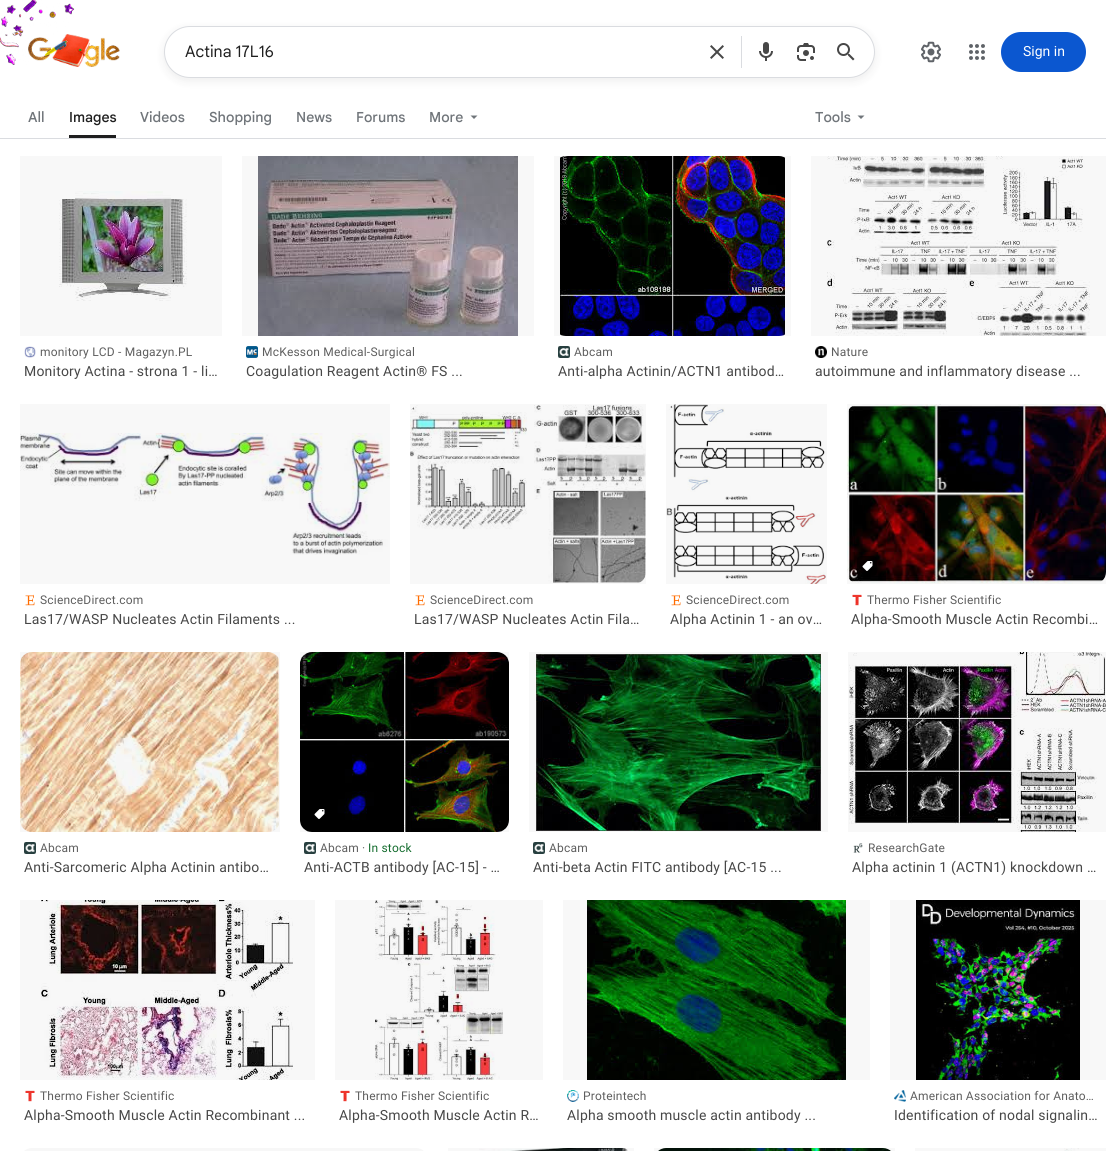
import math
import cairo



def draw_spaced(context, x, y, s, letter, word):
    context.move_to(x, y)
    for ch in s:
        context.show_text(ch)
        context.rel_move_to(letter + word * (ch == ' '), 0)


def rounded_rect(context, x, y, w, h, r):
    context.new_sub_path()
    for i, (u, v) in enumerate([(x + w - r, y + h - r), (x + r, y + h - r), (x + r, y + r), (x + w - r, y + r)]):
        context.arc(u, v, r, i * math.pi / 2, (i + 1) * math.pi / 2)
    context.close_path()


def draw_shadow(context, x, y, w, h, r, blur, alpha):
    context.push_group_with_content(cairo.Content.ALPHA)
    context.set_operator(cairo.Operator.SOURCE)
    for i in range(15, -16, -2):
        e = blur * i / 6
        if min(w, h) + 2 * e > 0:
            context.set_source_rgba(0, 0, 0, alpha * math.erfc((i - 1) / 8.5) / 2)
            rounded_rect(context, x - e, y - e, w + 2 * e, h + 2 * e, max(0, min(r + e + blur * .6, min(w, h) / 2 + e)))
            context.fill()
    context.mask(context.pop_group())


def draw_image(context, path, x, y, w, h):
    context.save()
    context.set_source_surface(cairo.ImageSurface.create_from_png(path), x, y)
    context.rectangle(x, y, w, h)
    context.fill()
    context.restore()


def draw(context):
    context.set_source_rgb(1, 1, 1)
    context.paint()
    draw_image(context, "images/1.png", 0, 0, 75, 65)
    draw_image(context, "images/2.png", 28, 34, 92, 33)
    context.set_source_rgb(31 / 255, 31 / 255, 31 / 255)
    draw_shadow(context, 164, 29, 711, 52, 26, 5, 0.08)
    context.set_source_rgb(1, 1, 1)
    rounded_rect(context, 164.5, 26.5, 710, 51, 25.5)
    context.fill_preserve()
    context.set_source_rgb(218 / 255, 220 / 255, 224 / 255)
    context.set_line_width(1)
    context.stroke()
    draw_image(context, "images/3.png", 710, 45, 14, 14)
    context.rectangle(741, 36, 1, 32)
    context.fill()
    draw_image(context, "images/4.png", 759, 42, 14, 19)
    draw_image(context, "images/5.png", 797, 43, 18, 18)
    draw_image(context, "images/6.png", 837, 43, 18, 18)
    draw_image(context, "images/7.png", 921, 41, 20, 22)
    draw_image(context, "images/8.png", 969, 44, 16, 16)
    context.set_source_rgb(11 / 255, 87 / 255, 208 / 255)
    rounded_rect(context, 1001, 32, 85, 40, 20)
    context.fill()
    context.set_source_rgb(31 / 255, 31 / 255, 31 / 255)
    context.rectangle(69, 135, 47, 3)
    context.fill()
    context.set_source_rgb(112 / 255, 117 / 255, 122 / 255)
    context.new_path()
    context.move_to(470.5, 115.5)
    context.line_to(474, 119)
    context.line_to(477.5, 115.5)
    context.close_path()
    context.fill()
    context.new_path()
    context.move_to(857.5, 115.5)
    context.line_to(861, 119)
    context.line_to(864.5, 115.5)
    context.close_path()
    context.fill()
    context.set_source_rgb(218 / 255, 220 / 255, 224 / 255)
    context.rectangle(0, 138, 1106, 1)
    context.fill()
    draw_image(context, "images/9.png", 59, 191, 128, 110)
    context.set_source_rgba(0, 0, 0, 0.03)
    context.rectangle(20, 156, 202, 180)
    context.fill()
    draw_image(context, "images/10.png", 24, 346, 12, 12)
    draw_image(context, "images/11.png", 258, 156, 260, 180)
    context.rectangle(242, 156, 292, 180)
    context.fill()
    draw_image(context, "images/12.png", 246, 346, 12, 12)
    draw_image(context, "images/13.png", 560, 156, 225, 180)
    context.rectangle(554, 156, 237, 180)
    context.fill()
    draw_image(context, "images/14.png", 558, 346, 12, 12)
    draw_image(context, "images/15.png", 827, 156, 263, 180)
    context.rectangle(811, 156, 295, 180)
    context.fill()
    draw_image(context, "images/16.png", 815, 346, 12, 12)
    draw_image(context, "images/17.png", 20, 433, 370, 122)
    context.rectangle(20, 404, 370, 180)
    context.fill()
    draw_image(context, "images/18.png", 25, 594, 10, 12)
    draw_image(context, "images/19.png", 410, 405, 236, 178)
    context.rectangle(410, 404, 236, 180)
    context.fill()
    draw_image(context, "images/20.png", 415, 594, 10, 12)
    draw_image(context, "images/21.png", 666, 404, 160, 180)
    context.rectangle(666, 404, 161, 180)
    context.fill()
    draw_image(context, "images/18.png", 671, 594, 10, 12)
    draw_image(context, "images/22.png", 847, 404, 259, 180)
    context.rectangle(847, 404, 259, 180)
    context.fill()
    context.set_source_rgba(0, 0, 0, 0.6)
    rounded_rect(context, 857, 556, 20, 20, 4)
    context.fill()
    draw_image(context, "images/23.png", 862, 561, 11, 10)
    draw_image(context, "images/24.png", 852, 594, 10, 12)
    draw_image(context, "images/25.png", 20, 652, 259, 180)
    context.set_source_rgba(0, 0, 0, 0.03)
    context.rectangle(20, 652, 260, 180)
    context.fill()
    draw_image(context, "images/26.png", 24, 842, 12, 12)
    draw_image(context, "images/27.png", 300, 652, 209, 180)
    context.rectangle(300, 652, 209, 180)
    context.fill()
    draw_image(context, "images/28.png", 314, 809, 11, 10)
    draw_image(context, "images/14.png", 304, 842, 12, 12)
    draw_image(context, "images/29.png", 536, 654, 285, 177)
    context.rectangle(529, 652, 299, 180)
    context.fill()
    draw_image(context, "images/14.png", 533, 842, 12, 12)
    draw_image(context, "images/30.png", 849, 652, 257, 180)
    context.rectangle(848, 652, 258, 180)
    context.fill()
    draw_image(context, "images/31.png", 853, 843, 10, 10)
    draw_image(context, "images/32.png", 41, 900, 252, 180)
    context.rectangle(20, 900, 295, 180)
    context.fill()
    draw_image(context, "images/33.png", 25, 1090, 10, 12)
    draw_image(context, "images/34.png", 375, 900, 128, 180)
    context.rectangle(335, 900, 208, 180)
    context.fill()
    draw_image(context, "images/35.png", 340, 1090, 10, 12)
    draw_image(context, "images/36.png", 587, 900, 259, 180)
    context.rectangle(563, 900, 307, 180)
    context.fill()
    draw_image(context, "images/37.png", 567, 1090, 12, 12)
    draw_image(context, "images/38.png", 916, 900, 164, 180)
    context.rectangle(890, 900, 216, 180)
    context.fill()
    draw_image(context, "images/39.png", 894, 1090, 12, 12)
    context.set_source_rgb(247 / 255, 247 / 255, 247 / 255)
    rounded_rect(context, 20, 1148, 408, 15, 12)
    context.fill()
    draw_image(context, "images/40.png", 479, 1148, 149, 3)
    context.set_source_rgba(0, 0, 0, 0.03)
    context.rectangle(448, 1148, 186, 3)
    context.fill()
    draw_image(context, "images/41.png", 658, 1148, 233, 3)
    context.rectangle(654, 1148, 241, 3)
    context.fill()
    draw_image(context, "images/42.png", 1064, 1148, 15, 3)
    context.rectangle(915, 1148, 191, 3)
    context.fill()
    context.select_font_face("Google Sans")
    context.set_font_size(16)
    context.set_source_rgb(31 / 255, 31 / 255, 31 / 255)
    context.move_to(185, 57)
    context.show_text("Actina 17L16")
    context.select_font_face("Roboto")
    context.set_font_size(14)
    context.set_source_rgb(1, 1, 1)
    context.move_to(1023, 56)
    context.show_text("Sign in")
    context.select_font_face("Google Sans Medium")
    context.set_source_rgb(112 / 255, 117 / 255, 122 / 255)
    context.move_to(28, 122)
    context.show_text("All")
    context.set_source_rgb(31 / 255, 31 / 255, 31 / 255)
    context.move_to(69, 122)
    context.show_text("Images")
    context.set_source_rgb(112 / 255, 117 / 255, 122 / 255)
    context.move_to(140, 122)
    context.show_text("Videos")
    context.move_to(209, 122)
    context.show_text("Shopping")
    context.move_to(296, 122)
    context.show_text("News")
    context.move_to(356, 122)
    context.show_text("Forums")
    context.move_to(429, 122)
    context.show_text("More")
    context.move_to(815, 122)
    context.show_text("Tools")
    context.select_font_face("Roboto")
    context.set_font_size(12)
    context.set_source_rgb(94 / 255, 94 / 255, 94 / 255)
    draw_spaced(context, 40, 356, "monitory LCD - Magazyn.PL", 0.2, 0)
    context.set_font_size(14)
    context.set_source_rgb(71 / 255, 71 / 255, 71 / 255)
    draw_spaced(context, 24, 376, "Monitory Actina - strona 1 - li…", 0.2, 0)
    context.set_font_size(12)
    context.set_source_rgb(94 / 255, 94 / 255, 94 / 255)
    draw_spaced(context, 262, 356, "McKesson Medical-Surgical", 0.2, 0)
    context.set_font_size(14)
    context.set_source_rgb(71 / 255, 71 / 255, 71 / 255)
    draw_spaced(context, 246, 376, "Coagulation Reagent Actin® FS ...", 0.2, 0)
    context.set_font_size(12)
    context.set_source_rgb(94 / 255, 94 / 255, 94 / 255)
    draw_spaced(context, 574, 356, "Abcam", 0.2, 0)
    context.set_font_size(14)
    context.set_source_rgb(71 / 255, 71 / 255, 71 / 255)
    draw_spaced(context, 558, 376, "Anti-alpha Actinin/ACTN1 antibod…", 0.2, 0)
    context.set_font_size(12)
    context.set_source_rgb(94 / 255, 94 / 255, 94 / 255)
    draw_spaced(context, 831, 356, "Nature", 0.2, 0)
    context.set_font_size(14)
    context.set_source_rgb(71 / 255, 71 / 255, 71 / 255)
    draw_spaced(context, 815, 376, "autoimmune and inflammatory disease ...", 0.2, 0)
    context.set_font_size(12)
    context.set_source_rgb(94 / 255, 94 / 255, 94 / 255)
    draw_spaced(context, 40, 604, "ScienceDirect.com", 0.2, 0)
    context.set_font_size(14)
    context.set_source_rgb(71 / 255, 71 / 255, 71 / 255)
    draw_spaced(context, 24, 624, "Las17/WASP Nucleates Actin Filaments ...", 0.2, 0)
    context.set_font_size(12)
    context.set_source_rgb(94 / 255, 94 / 255, 94 / 255)
    draw_spaced(context, 430, 604, "ScienceDirect.com", 0.2, 0)
    context.set_font_size(14)
    context.set_source_rgb(71 / 255, 71 / 255, 71 / 255)
    draw_spaced(context, 414, 624, "Las17/WASP Nucleates Actin Fila…", 0.2, 0)
    context.set_font_size(12)
    context.set_source_rgb(94 / 255, 94 / 255, 94 / 255)
    draw_spaced(context, 686, 604, "ScienceDirect.com", 0.2, 0)
    context.set_font_size(14)
    context.set_source_rgb(71 / 255, 71 / 255, 71 / 255)
    draw_spaced(context, 670, 624, "Alpha Actinin 1 - an ov…", 0.2, 0)
    context.set_font_size(12)
    context.set_source_rgb(94 / 255, 94 / 255, 94 / 255)
    draw_spaced(context, 867, 604, "Thermo Fisher Scientific", 0.2, 0)
    context.set_font_size(14)
    context.set_source_rgb(71 / 255, 71 / 255, 71 / 255)
    draw_spaced(context, 851, 624, "Alpha-Smooth Muscle Actin Recombi…", 0.2, 0)
    context.set_font_size(12)
    context.set_source_rgb(94 / 255, 94 / 255, 94 / 255)
    draw_spaced(context, 40, 852, "Abcam", 0.2, 0)
    context.set_font_size(14)
    context.set_source_rgb(71 / 255, 71 / 255, 71 / 255)
    draw_spaced(context, 24, 872, "Anti-Sarcomeric Alpha Actinin antibo…", 0.2, 0)
    context.set_font_size(12)
    context.set_source_rgb(94 / 255, 94 / 255, 94 / 255)
    draw_spaced(context, 320, 852, "Abcam ·", 0.2, 0)
    context.set_source_rgb(20 / 255, 108 / 255, 46 / 255)
    draw_spaced(context, 368, 852, "In stock", 0.2, 0)
    context.set_font_size(14)
    context.set_source_rgb(71 / 255, 71 / 255, 71 / 255)
    draw_spaced(context, 304, 872, "Anti-ACTB antibody [AC-15] - …", 0.2, 0)
    context.set_font_size(12)
    context.set_source_rgb(94 / 255, 94 / 255, 94 / 255)
    draw_spaced(context, 549, 852, "Abcam", 0.2, 0)
    context.set_font_size(14)
    context.set_source_rgb(71 / 255, 71 / 255, 71 / 255)
    draw_spaced(context, 533, 872, "Anti-beta Actin FITC antibody [AC-15 ...", 0.2, 0)
    context.set_font_size(12)
    context.set_source_rgb(94 / 255, 94 / 255, 94 / 255)
    draw_spaced(context, 868, 852, "ResearchGate", 0.2, 0)
    context.set_font_size(14)
    context.set_source_rgb(71 / 255, 71 / 255, 71 / 255)
    draw_spaced(context, 852, 872, "Alpha actinin 1 (ACTN1) knockdown …", 0.2, 0)
    context.set_font_size(12)
    context.set_source_rgb(94 / 255, 94 / 255, 94 / 255)
    draw_spaced(context, 40, 1100, "Thermo Fisher Scientific", 0.2, 0)
    context.set_font_size(14)
    context.set_source_rgb(71 / 255, 71 / 255, 71 / 255)
    draw_spaced(context, 24, 1120, "Alpha-Smooth Muscle Actin Recombinant ...", 0.2, 0)
    context.set_font_size(12)
    context.set_source_rgb(94 / 255, 94 / 255, 94 / 255)
    draw_spaced(context, 355, 1100, "Thermo Fisher Scientific", 0.2, 0)
    context.set_font_size(14)
    context.set_source_rgb(71 / 255, 71 / 255, 71 / 255)
    draw_spaced(context, 339, 1120, "Alpha-Smooth Muscle Actin R…", 0.2, 0)
    context.set_font_size(12)
    context.set_source_rgb(94 / 255, 94 / 255, 94 / 255)
    draw_spaced(context, 583, 1100, "Proteintech", 0.2, 0)
    context.set_font_size(14)
    context.set_source_rgb(71 / 255, 71 / 255, 71 / 255)
    draw_spaced(context, 567, 1120, "Alpha smooth muscle actin antibody ...", 0.2, 0)
    context.set_font_size(12)
    context.set_source_rgb(94 / 255, 94 / 255, 94 / 255)
    draw_spaced(context, 910, 1100, "American Association for Anato…", 0.2, 0)
    context.set_font_size(14)
    context.set_source_rgb(71 / 255, 71 / 255, 71 / 255)
    draw_spaced(context, 894, 1120, "Identification of nodal signalin…", 0.2, 0)


surface = cairo.ImageSurface(cairo.Format.RGB24, 1106, 1151)
context = cairo.Context(surface)
options = cairo.FontOptions()
options.set_hint_metrics(cairo.HintMetrics.OFF)
options.set_hint_style(cairo.HintStyle.NONE)
context.set_font_options(options)
context.set_miter_limit(4)
draw(context)
surface.write_to_png("out.png")
